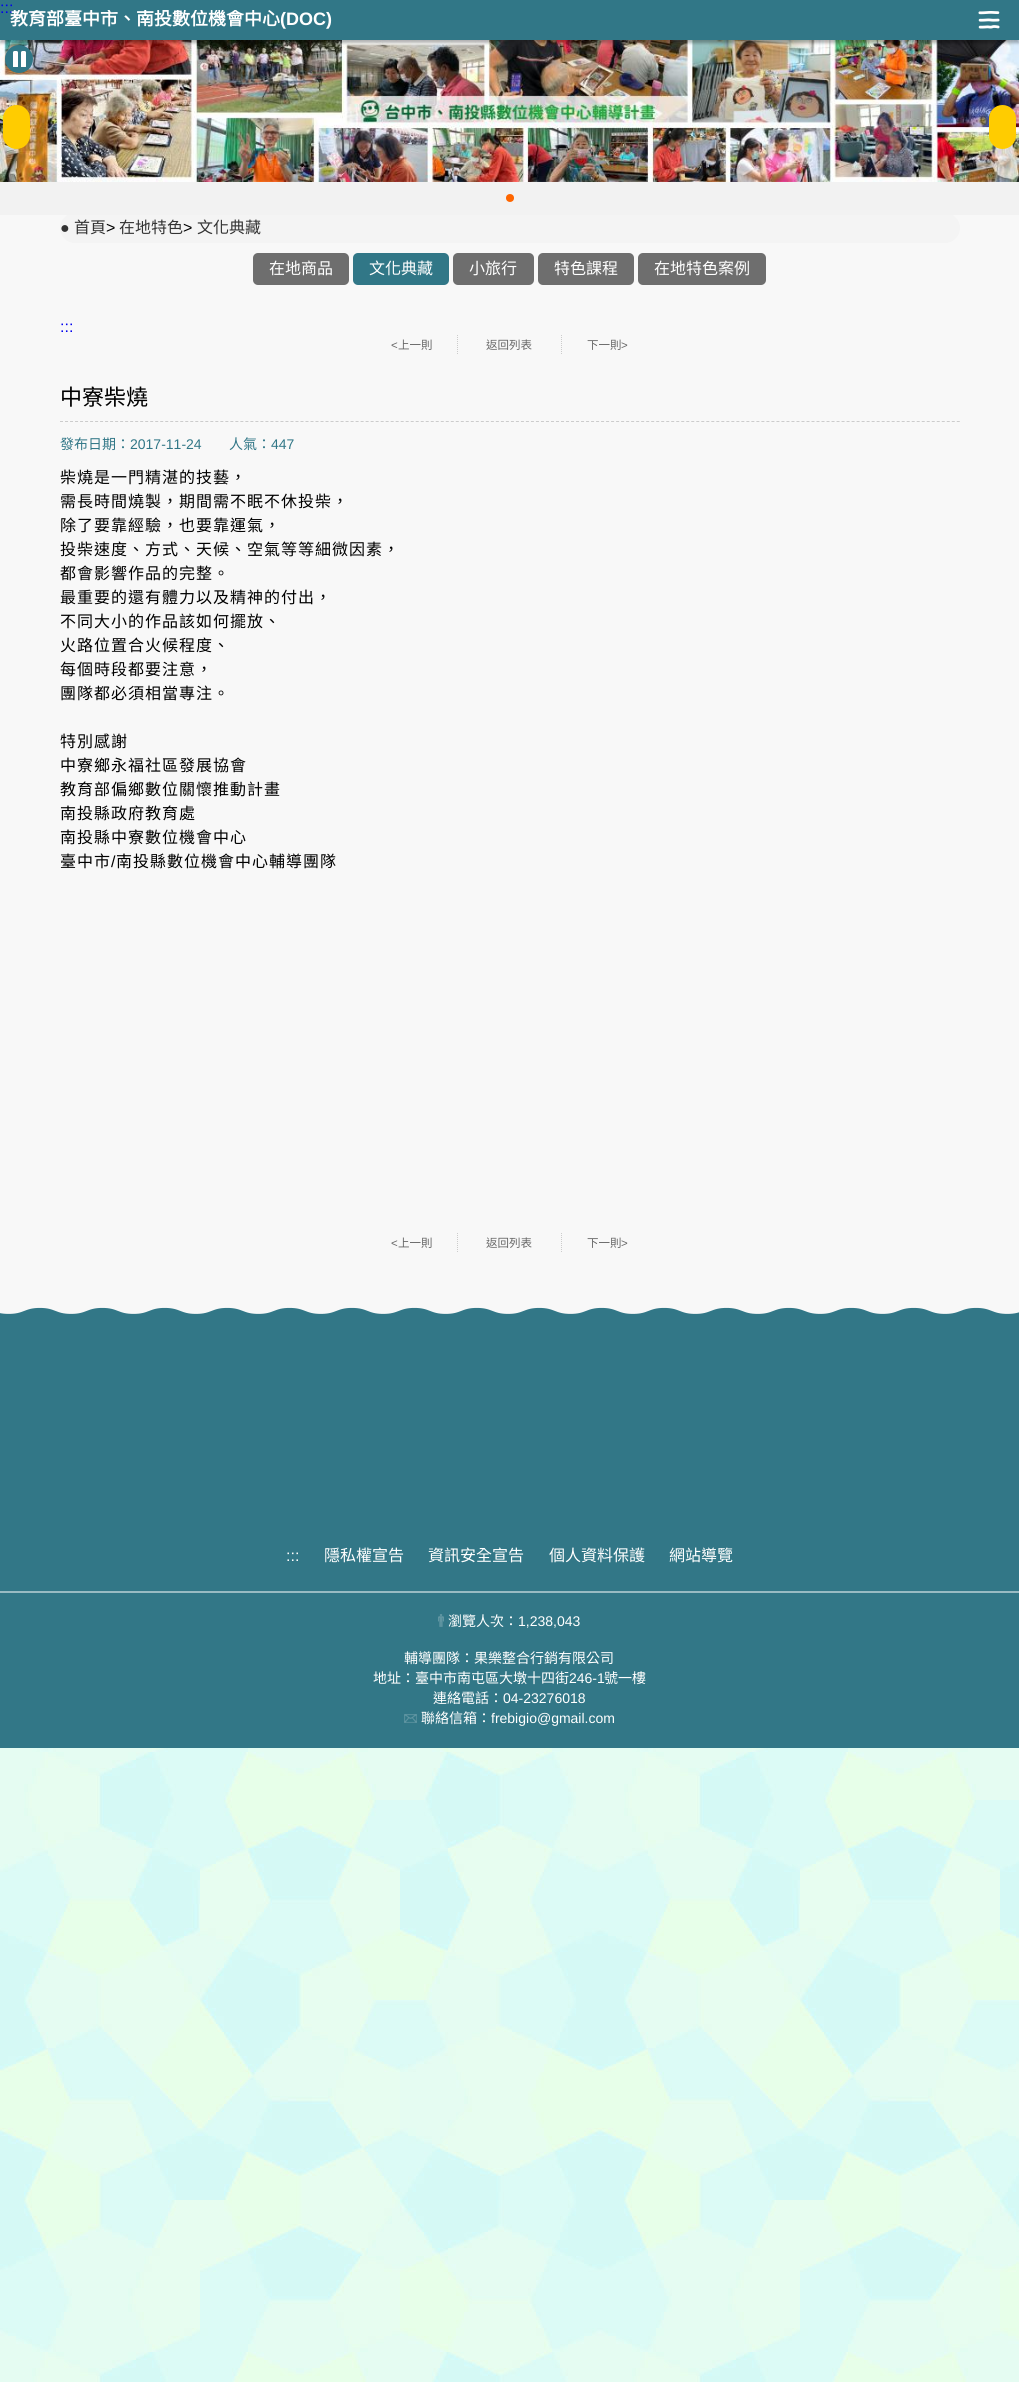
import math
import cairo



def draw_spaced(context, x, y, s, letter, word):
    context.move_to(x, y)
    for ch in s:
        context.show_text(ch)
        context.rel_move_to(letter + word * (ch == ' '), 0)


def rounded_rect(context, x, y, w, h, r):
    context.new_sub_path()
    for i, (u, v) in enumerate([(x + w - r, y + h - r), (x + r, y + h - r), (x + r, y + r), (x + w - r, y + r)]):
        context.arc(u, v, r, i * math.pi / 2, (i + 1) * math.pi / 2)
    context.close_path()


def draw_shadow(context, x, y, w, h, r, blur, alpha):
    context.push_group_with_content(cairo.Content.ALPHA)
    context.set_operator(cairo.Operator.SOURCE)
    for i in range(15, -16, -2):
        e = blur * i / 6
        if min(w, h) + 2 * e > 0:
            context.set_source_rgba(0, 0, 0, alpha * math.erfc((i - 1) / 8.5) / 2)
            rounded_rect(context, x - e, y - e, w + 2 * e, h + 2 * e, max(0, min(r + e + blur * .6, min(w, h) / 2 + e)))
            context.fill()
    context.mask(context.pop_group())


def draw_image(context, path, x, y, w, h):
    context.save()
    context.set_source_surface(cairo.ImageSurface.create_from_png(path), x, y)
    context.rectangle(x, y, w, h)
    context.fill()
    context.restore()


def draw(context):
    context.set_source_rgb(1, 1, 1)
    context.paint()
    draw_image(context, "images/1.png", 0, 1748, 1019, 634)
    draw_image(context, "images/3.png", 0, 40, 1019, 142)
    context.set_source_rgb(49 / 255, 119 / 255, 135 / 255)
    context.arc(19, 59, 14, 0, 2 * math.pi)
    context.fill()
    context.set_source_rgb(0, 0, 0)
    draw_shadow(context, 0, 3, 1019, 40, 0, 1.5, 0.3)
    context.set_source_rgb(49 / 255, 119 / 255, 135 / 255)
    context.rectangle(0, 0, 1019, 40)
    context.fill()
    draw_image(context, "images/2.png", 978, 11, 22, 18)
    context.set_source_rgb(248 / 255, 248 / 255, 248 / 255)
    context.rectangle(0, 215, 1019, 1084)
    context.fill()
    context.set_source_rgb(244 / 255, 244 / 255, 244 / 255)
    rounded_rect(context, 60, 213, 900, 30, 15)
    context.fill()
    context.set_source_rgb(242 / 255, 242 / 255, 242 / 255)
    context.rectangle(0, 182, 1019, 33)
    context.fill()
    context.set_source_rgb(1, 204 / 255, 0)
    rounded_rect(context, 3, 105, 27, 44, 13.5)
    context.fill()
    rounded_rect(context, 989, 105, 27, 44, 13.5)
    context.fill()
    context.set_source_rgb(1, 102 / 255, 0)
    context.arc(510, 198, 4, 0, 2 * math.pi)
    context.fill()
    context.save()
    context.rectangle(11, 51, 16, 16)
    context.clip()
    context.set_source_rgb(1, 1, 1)
    rounded_rect(context, 13, 51, 5, 17, 1.5)
    context.fill()
    rounded_rect(context, 21, 51, 5, 17, 1.5)
    context.fill()
    context.restore()
    context.set_source_rgb(110 / 255, 110 / 255, 110 / 255)
    rounded_rect(context, 253, 253, 96, 32, 5)
    context.fill()
    context.set_source_rgb(49 / 255, 119 / 255, 135 / 255)
    rounded_rect(context, 353, 253, 96, 32, 5)
    context.fill()
    context.set_source_rgb(110 / 255, 110 / 255, 110 / 255)
    rounded_rect(context, 453, 253, 81, 32, 5)
    context.fill()
    rounded_rect(context, 538, 253, 96, 32, 5)
    context.fill()
    rounded_rect(context, 638, 253, 128, 32, 5)
    context.fill()
    context.new_path()
    context.move_to(457.5, 335)
    context.line_to(457.5, 355)
    context.set_source_rgb(204 / 255, 204 / 255, 204 / 255)
    context.set_line_width(1)
    context.set_dash([1, 1])
    context.stroke()
    context.new_path()
    context.move_to(561.5, 335)
    context.line_to(561.5, 355)
    context.stroke()
    context.new_path()
    context.move_to(60, 421.5)
    context.line_to(960, 421.5)
    context.set_dash([3, 2.01])
    context.stroke()
    context.new_path()
    context.move_to(457.5, 1233)
    context.line_to(457.5, 1253)
    context.set_dash([1, 1])
    context.stroke()
    context.new_path()
    context.move_to(561.5, 1233)
    context.line_to(561.5, 1253)
    context.stroke()
    context.set_source_rgb(50 / 255, 119 / 255, 135 / 255)
    context.rectangle(0, 1307, 1019, 441)
    context.fill()
    draw_image(context, "images/4.png", 0, 1299, 1019, 15)
    context.set_source_rgb(153 / 255, 187 / 255, 195 / 255)
    context.rectangle(0, 1591, 1019, 2)
    context.fill()
    draw_image(context, "images/5.png", 438, 1614, 6, 13)
    draw_image(context, "images/6.png", 404, 1714, 13, 9)
    context.select_font_face("Liberation Sans")
    context.set_font_size(16)
    context.set_source_rgb(0, 0, 238 / 255)
    context.move_to(0, 13)
    context.show_text(":::")
    context.save()
    context.rectangle(10, 10, 611, 20)
    context.clip()
    context.select_font_face("Noto Sans CJK TC", cairo.FontSlant.NORMAL, cairo.FontWeight.BOLD)
    context.set_font_size(18)
    context.set_source_rgb(1, 1, 1)
    context.move_to(10, 25)
    context.show_text("教育部臺中市、南投數位機會中心")
    context.restore()
    context.select_font_face("Liberation Sans", cairo.FontSlant.NORMAL, cairo.FontWeight.BOLD)
    context.set_font_size(18)
    context.set_source_rgb(1, 1, 1)
    context.move_to(280, 25)
    context.show_text("(DOC)")
    context.select_font_face("Liberation Sans")
    context.set_font_size(16)
    context.set_source_rgb(51 / 255, 51 / 255, 51 / 255)
    context.move_to(60, 233)
    context.show_text("●")
    context.select_font_face("Noto Sans CJK TC")
    context.move_to(74, 233)
    context.show_text("首頁")
    context.select_font_face("Liberation Sans")
    context.set_source_rgb(0, 0, 0)
    context.move_to(106, 233)
    context.show_text(">")
    context.select_font_face("Noto Sans CJK TC")
    context.set_source_rgb(51 / 255, 51 / 255, 51 / 255)
    context.move_to(119, 233)
    context.show_text("在地特色")
    context.select_font_face("Liberation Sans")
    context.set_source_rgb(0, 0, 0)
    context.move_to(183, 233)
    context.show_text(">")
    context.select_font_face("Noto Sans CJK TC")
    context.set_source_rgb(51 / 255, 51 / 255, 51 / 255)
    context.move_to(197, 233)
    context.show_text("文化典藏")
    context.set_source_rgb(1, 1, 1)
    context.move_to(269, 274)
    context.show_text("在地商品")
    context.move_to(369, 274)
    context.show_text("文化典藏")
    context.move_to(469, 274)
    context.show_text("小旅行")
    context.move_to(554, 274)
    context.show_text("特色課程")
    context.move_to(654, 274)
    context.show_text("在地特色案例")
    context.select_font_face("Liberation Sans")
    context.set_source_rgb(0, 0, 238 / 255)
    context.move_to(60, 332)
    context.show_text(":::")
    context.set_font_size(11.5)
    context.set_source_rgb(102 / 255, 102 / 255, 102 / 255)
    context.move_to(391, 349)
    context.show_text("<")
    context.select_font_face("Noto Sans CJK TC")
    context.move_to(398, 349)
    context.show_text("上一則")
    context.move_to(486, 349)
    context.show_text("返回列表")
    context.move_to(587, 349)
    context.show_text("下一則")
    context.select_font_face("Liberation Sans")
    context.move_to(621, 349)
    context.show_text(">")
    context.select_font_face("Noto Sans CJK TC")
    context.set_font_size(22)
    context.set_source_rgb(0, 0, 0)
    context.move_to(60, 405)
    context.show_text("中寮柴燒")
    context.set_font_size(14)
    context.set_source_rgb(49 / 255, 119 / 255, 135 / 255)
    context.move_to(60, 449)
    context.show_text("發布日期：")
    context.select_font_face("Liberation Sans")
    context.move_to(130, 449)
    context.show_text("2017-11-24")
    context.select_font_face("Noto Sans CJK TC")
    context.move_to(229, 449)
    context.show_text("人氣：")
    context.select_font_face("Liberation Sans")
    context.move_to(271, 449)
    context.show_text("447")
    context.select_font_face("Noto Sans CJK TC")
    context.set_font_size(16)
    context.set_source_rgb(0, 0, 0)
    draw_spaced(context, 60, 483, "柴燒是一門精湛的技藝，", 1, 0)
    draw_spaced(context, 60, 507, "需長時間燒製，期間需不眠不休投柴，", 1, 0)
    draw_spaced(context, 60, 531, "除了要靠經驗，也要靠運氣，", 1, 0)
    draw_spaced(context, 60, 555, "投柴速度、方式、天候、空氣等等細微因素，", 1, 0)
    draw_spaced(context, 60, 579, "都會影響作品的完整。", 1, 0)
    draw_spaced(context, 60, 603, "最重要的還有體力以及精神的付出，", 1, 0)
    draw_spaced(context, 60, 627, "不同大小的作品該如何擺放、", 1, 0)
    draw_spaced(context, 60, 651, "火路位置合火候程度、", 1, 0)
    draw_spaced(context, 60, 675, "每個時段都要注意，", 1, 0)
    draw_spaced(context, 60, 699, "團隊都必須相當專注。", 1, 0)
    draw_spaced(context, 60, 747, "特別感謝", 1, 0)
    draw_spaced(context, 60, 771, "中寮鄉永福社區發展協會", 1, 0)
    draw_spaced(context, 60, 795, "教育部偏鄉數位關懷推動計畫", 1, 0)
    draw_spaced(context, 60, 819, "南投縣政府教育處", 1, 0)
    draw_spaced(context, 60, 843, "南投縣中寮數位機會中心", 1, 0)
    draw_spaced(context, 60, 867, "臺中市", 1, 0)
    context.select_font_face("Liberation Sans")
    draw_spaced(context, 111, 867, "/", 1, 0)
    context.select_font_face("Noto Sans CJK TC")
    draw_spaced(context, 116, 867, "南投縣數位機會中心輔導團隊", 1, 0)
    context.select_font_face("Liberation Sans")
    context.set_font_size(11.5)
    context.set_source_rgb(102 / 255, 102 / 255, 102 / 255)
    context.move_to(391, 1247)
    context.show_text("<")
    context.select_font_face("Noto Sans CJK TC")
    context.move_to(398, 1247)
    context.show_text("上一則")
    context.move_to(486, 1247)
    context.show_text("返回列表")
    context.move_to(587, 1247)
    context.show_text("下一則")
    context.select_font_face("Liberation Sans")
    context.move_to(621, 1247)
    context.show_text(">")
    context.set_font_size(16)
    context.set_source_rgb(1, 1, 1)
    context.move_to(286, 1561)
    context.show_text(":::")
    context.select_font_face("Noto Sans CJK TC")
    context.move_to(324, 1561)
    context.show_text("隱私權宣告")
    context.move_to(428, 1561)
    context.show_text("資訊安全宣告")
    context.move_to(549, 1561)
    context.show_text("個人資料保護")
    context.move_to(669, 1561)
    context.show_text("網站導覽")
    context.set_font_size(14)
    context.move_to(448, 1626)
    context.show_text("瀏覽人次：")
    context.select_font_face("Liberation Sans")
    context.move_to(518, 1626)
    context.show_text("1,238,043")
    context.select_font_face("Noto Sans CJK TC")
    context.move_to(404, 1663)
    context.show_text("輔導團隊：果樂整合行銷有限公司")
    context.move_to(373, 1683)
    context.show_text("地址：臺中市南屯區大墩十四街")
    context.select_font_face("Liberation Sans")
    context.move_to(569, 1683)
    context.show_text("246-1")
    context.select_font_face("Noto Sans CJK TC")
    context.move_to(604, 1683)
    context.show_text("號一樓")
    context.move_to(433, 1703)
    context.show_text("連絡電話：")
    context.select_font_face("Liberation Sans")
    context.move_to(503, 1703)
    context.show_text("04-23276018")
    context.select_font_face("Noto Sans CJK TC")
    context.move_to(421, 1723)
    context.show_text("聯絡信箱：")
    context.select_font_face("Liberation Sans")
    context.move_to(491, 1723)
    context.show_text("frebigio@gmail.com")


surface = cairo.ImageSurface(cairo.Format.RGB24, 1019, 2382)
context = cairo.Context(surface)
options = cairo.FontOptions()
options.set_hint_metrics(cairo.HintMetrics.OFF)
options.set_hint_style(cairo.HintStyle.NONE)
context.set_font_options(options)
context.set_miter_limit(4)
draw(context)
surface.write_to_png("out.png")
